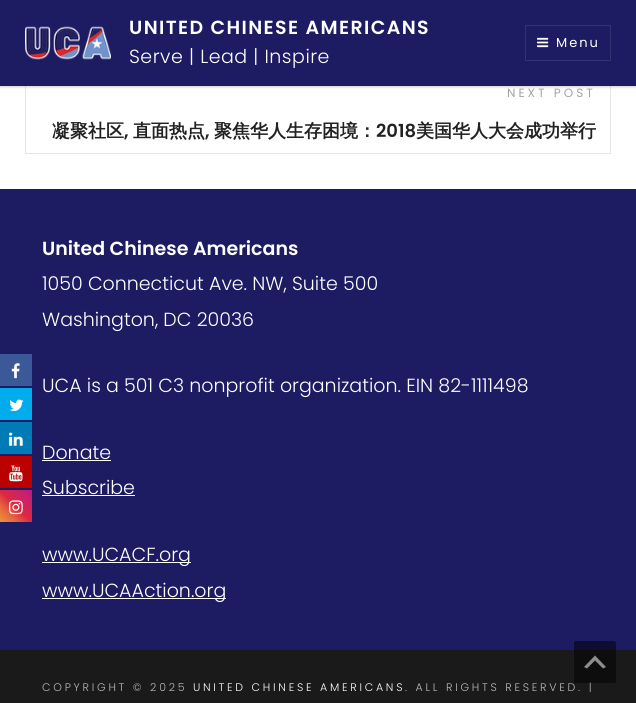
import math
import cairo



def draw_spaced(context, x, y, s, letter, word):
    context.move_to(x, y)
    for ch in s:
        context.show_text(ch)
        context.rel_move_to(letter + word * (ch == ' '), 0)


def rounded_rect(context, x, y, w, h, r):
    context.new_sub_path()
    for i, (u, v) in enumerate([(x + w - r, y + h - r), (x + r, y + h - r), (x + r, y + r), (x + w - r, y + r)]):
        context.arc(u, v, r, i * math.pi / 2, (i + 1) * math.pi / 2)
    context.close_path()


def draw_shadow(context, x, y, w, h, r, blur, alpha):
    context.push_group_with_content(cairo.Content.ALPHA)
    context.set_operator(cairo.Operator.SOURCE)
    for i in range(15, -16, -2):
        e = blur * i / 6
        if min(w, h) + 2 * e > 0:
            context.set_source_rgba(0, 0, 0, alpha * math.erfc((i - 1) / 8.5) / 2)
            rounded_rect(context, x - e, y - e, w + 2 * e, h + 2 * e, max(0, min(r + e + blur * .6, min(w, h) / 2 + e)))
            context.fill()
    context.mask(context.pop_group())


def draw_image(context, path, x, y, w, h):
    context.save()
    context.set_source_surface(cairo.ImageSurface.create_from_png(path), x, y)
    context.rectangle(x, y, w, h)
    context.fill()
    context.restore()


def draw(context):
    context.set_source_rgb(1, 1, 1)
    context.paint()
    context.set_source_rgb(29 / 255, 27 / 255, 98 / 255)
    context.rectangle(0, 189, 636, 461)
    context.fill()
    context.set_source_rgb(59 / 255, 89 / 255, 152 / 255)
    context.rectangle(0, 354, 32, 32)
    context.fill()
    draw_image(context, "images/1.png", 11, 363, 9, 16)
    context.set_source_rgb(0, 172 / 255, 237 / 255)
    context.rectangle(0, 388, 32, 32)
    context.fill()
    draw_image(context, "images/2.png", 9, 399, 15, 12)
    context.set_source_rgb(0, 123 / 255, 182 / 255)
    context.rectangle(0, 422, 32, 32)
    context.fill()
    draw_image(context, "images/3.png", 9, 432, 14, 14)
    context.set_source_rgb(187 / 255, 0, 0)
    context.rectangle(0, 456, 32, 32)
    context.fill()
    draw_image(context, "images/4.png", 9, 465, 14, 17)
    gradient = cairo.LinearGradient(0, 522, 32, 490)
    gradient.add_color_stop_rgba(0, 240 / 255, 148 / 255, 51 / 255, 1)
    gradient.add_color_stop_rgba(0.25, 230 / 255, 104 / 255, 60 / 255, 1)
    gradient.add_color_stop_rgba(0.5, 220 / 255, 39 / 255, 67 / 255, 1)
    gradient.add_color_stop_rgba(0.75, 204 / 255, 35 / 255, 102 / 255, 1)
    gradient.add_color_stop_rgba(1, 188 / 255, 24 / 255, 136 / 255, 1)
    context.set_source(gradient)
    context.rectangle(0, 490, 32, 32)
    context.fill()
    draw_image(context, "images/5.png", 9, 500, 14, 15)
    context.rectangle(25.5, 67.5, 585, 86)
    context.set_source_rgb(230 / 255, 230 / 255, 230 / 255)
    context.set_line_width(1)
    context.stroke()
    context.set_source_rgb(0, 0, 0)
    draw_shadow(context, 0, 1, 636, 86, 0, 1.5, 0.2)
    context.set_source_rgb(29 / 255, 27 / 255, 98 / 255)
    context.rectangle(0, 0, 636, 86)
    context.fill()
    draw_image(context, "images/6.png", 25, 26, 86, 34)
    context.rectangle(525.5, 25.5, 85, 35)
    context.set_source_rgb(52 / 255, 50 / 255, 114 / 255)
    context.stroke()
    draw_image(context, "images/7.png", 537, 37, 12, 11)
    context.set_source_rgb(1, 1, 1)
    context.rectangle(42, 460, 69, 1)
    context.fill()
    context.rectangle(42, 495, 93, 1)
    context.fill()
    context.rectangle(42, 562, 149, 1)
    context.fill()
    context.rectangle(42, 598, 184, 1)
    context.fill()
    context.set_source_rgb(26 / 255, 26 / 255, 26 / 255)
    context.rectangle(0, 650, 636, 53)
    context.fill()
    context.select_font_face("Poppins SemiBold")
    context.set_font_size(19)
    context.set_source_rgb(1, 1, 1)
    draw_spaced(context, 129, 34, "UNITED CHINESE AMERICANS", 1.4, 0)
    context.select_font_face("Poppins Light")
    draw_spaced(context, 129, 63, "Serve | Lead | Inspire", 0.5, 0)
    context.select_font_face("Poppins")
    context.set_font_size(13)
    draw_spaced(context, 556, 47, "Menu", 2, 0)
    context.set_font_size(12)
    context.set_source_rgb(163 / 255, 163 / 255, 163 / 255)
    draw_spaced(context, 507, 97, "NEXT POST", 3, 0)
    context.select_font_face("WenQuanYi Zen Hei", cairo.FontSlant.NORMAL, cairo.FontWeight.BOLD)
    context.set_font_size(18)
    context.set_source_rgb(34 / 255, 34 / 255, 34 / 255)
    context.move_to(52, 137)
    context.show_text("凝聚社区")
    context.select_font_face("Poppins SemiBold")
    context.move_to(124, 137)
    context.show_text(",")
    context.select_font_face("WenQuanYi Zen Hei", cairo.FontSlant.NORMAL, cairo.FontWeight.BOLD)
    context.move_to(133, 137)
    context.show_text("直面热点")
    context.select_font_face("Poppins SemiBold")
    context.move_to(205, 137)
    context.show_text(",")
    context.select_font_face("WenQuanYi Zen Hei", cairo.FontSlant.NORMAL, cairo.FontWeight.BOLD)
    context.move_to(214, 137)
    context.show_text("聚焦华人生存困境：")
    context.select_font_face("Poppins SemiBold")
    context.move_to(376, 137)
    context.show_text("2018")
    context.select_font_face("WenQuanYi Zen Hei", cairo.FontSlant.NORMAL, cairo.FontWeight.BOLD)
    context.move_to(416, 137)
    context.show_text("美国华人大会成功举行")
    context.select_font_face("Poppins SemiBold")
    context.set_font_size(19)
    context.set_source_rgb(1, 1, 1)
    context.move_to(42, 255)
    context.show_text("United Chinese Americans")
    context.select_font_face("Poppins Light")
    context.move_to(42, 290)
    context.show_text("1050 Connecticut Ave. NW, Suite 500")
    context.move_to(42, 326)
    context.show_text("Washington, DC 20036")
    context.move_to(42, 392)
    context.show_text("UCA is a 501 C3 nonprofit organization. EIN 82-1111498")
    context.move_to(42, 459)
    context.show_text("Donate")
    context.move_to(42, 494)
    context.show_text("Subscribe")
    context.move_to(42, 561)
    context.show_text("www.UCACF.org")
    context.move_to(42, 597)
    context.show_text("www.UCAAction.org")
    context.set_font_size(11)
    context.set_source_rgb(186 / 255, 186 / 255, 186 / 255)
    draw_spaced(context, 42, 691, "COPYRIGHT © 2025", 2.75, 0)
    context.set_source_rgb(1, 1, 1)
    draw_spaced(context, 193, 691, "UNITED CHINESE AMERICANS", 2.75, 0)
    context.set_source_rgb(186 / 255, 186 / 255, 186 / 255)
    draw_spaced(context, 405, 691, ". ALL RIGHTS RESERVED. |", 2.75, 0)
    context.set_source_rgba(0, 0, 0, 0.5)
    rounded_rect(context, 574, 641, 42, 42, 2)
    context.fill()
    context.set_source_rgb(141 / 255, 141 / 255, 141 / 255)
    context.new_path()
    context.move_to(603, 668.5)
    context.line_to(595, 660.5)
    context.line_to(587, 668.5)
    context.line_to(584, 667)
    context.line_to(595, 655.5)
    context.line_to(606, 667)
    context.close_path()
    context.fill()


surface = cairo.ImageSurface(cairo.Format.RGB24, 636, 703)
context = cairo.Context(surface)
options = cairo.FontOptions()
options.set_hint_metrics(cairo.HintMetrics.OFF)
options.set_hint_style(cairo.HintStyle.NONE)
context.set_font_options(options)
context.set_miter_limit(4)
draw(context)
surface.write_to_png("out.png")
